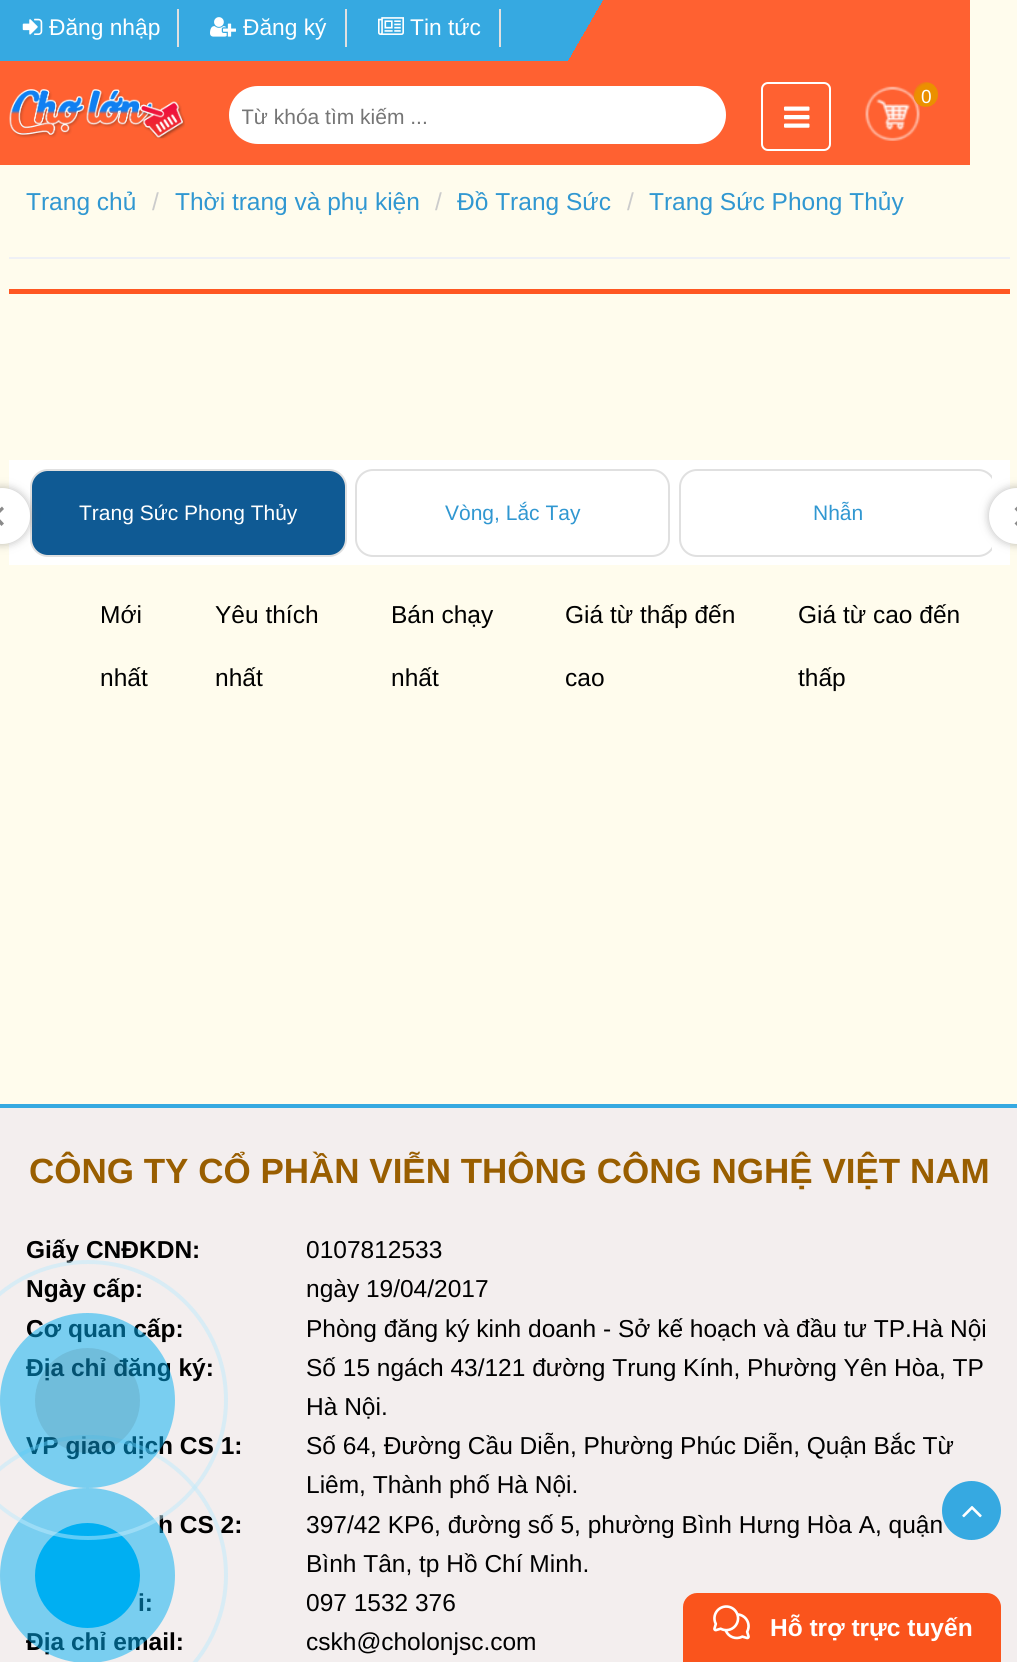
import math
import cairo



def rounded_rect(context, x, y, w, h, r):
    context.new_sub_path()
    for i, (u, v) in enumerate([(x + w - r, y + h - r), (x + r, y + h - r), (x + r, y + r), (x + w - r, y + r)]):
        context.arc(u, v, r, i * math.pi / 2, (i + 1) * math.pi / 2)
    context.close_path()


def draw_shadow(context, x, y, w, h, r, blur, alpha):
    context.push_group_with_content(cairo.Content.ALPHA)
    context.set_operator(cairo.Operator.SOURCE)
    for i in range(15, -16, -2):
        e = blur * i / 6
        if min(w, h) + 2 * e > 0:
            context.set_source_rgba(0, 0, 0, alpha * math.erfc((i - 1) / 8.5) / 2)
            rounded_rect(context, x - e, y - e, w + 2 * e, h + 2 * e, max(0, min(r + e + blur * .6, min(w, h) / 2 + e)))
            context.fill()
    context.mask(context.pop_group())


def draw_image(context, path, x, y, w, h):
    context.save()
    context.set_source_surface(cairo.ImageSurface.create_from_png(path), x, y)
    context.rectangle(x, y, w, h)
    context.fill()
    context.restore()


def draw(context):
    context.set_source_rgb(1, 252 / 255, 237 / 255)
    context.paint()
    gradient = cairo.LinearGradient(108, -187, 862, 248)
    gradient.add_color_stop_rgba(0.6, 54 / 255, 169 / 255, 225 / 255, 1)
    gradient.add_color_stop_rgba(0.6, 1, 97 / 255, 49 / 255, 1)
    context.set_source(gradient)
    context.rectangle(0, 0, 970, 61)
    context.fill()
    context.set_source_rgb(224 / 255, 224 / 255, 224 / 255)
    context.rectangle(177, 9, 2, 38)
    context.fill()
    draw_image(context, "images/1.png", 22, 18, 21, 17)
    context.rectangle(345, 9, 2, 38)
    context.fill()
    draw_image(context, "images/2.png", 210, 17, 26, 20)
    context.rectangle(499, 9, 2, 38)
    context.fill()
    draw_image(context, "images/3.png", 378, 17, 26, 18)
    context.set_source_rgb(1, 97 / 255, 49 / 255)
    context.rectangle(0, 61, 970, 104)
    context.fill()
    draw_image(context, "images/4.png", 9, 89, 176, 50)
    rounded_rect(context, 762, 83, 68, 67, 6)
    context.set_source_rgb(1, 1, 1)
    context.stroke()
    draw_image(context, "images/5.png", 784, 106, 26, 22)
    draw_image(context, "images/6.png", 865, 86, 55, 55)
    context.set_source_rgb(243 / 255, 112 / 255, 34 / 255)
    rounded_rect(context, 914, 82, 24, 25, 12)
    context.fill()
    draw_image(context, "images/7.png", 913, 82, 25, 25)
    context.set_source_rgb(1, 1, 1)
    rounded_rect(context, 229, 86, 497, 58, 29)
    context.fill()
    context.set_source_rgb(239 / 255, 240 / 255, 245 / 255)
    context.rectangle(9, 257, 1001, 2)
    context.fill()
    context.set_source_rgb(1, 87 / 255, 34 / 255)
    context.rectangle(9, 289, 1001, 5)
    context.fill()
    context.set_source_rgb(1, 1, 1)
    context.rectangle(9, 460, 1001, 105)
    context.fill()
    context.set_source_rgb(15 / 255, 90 / 255, 148 / 255)
    rounded_rect(context, 31, 470, 315, 86, 17)
    context.fill_preserve()
    context.set_source_rgb(224 / 255, 224 / 255, 224 / 255)
    context.stroke()
    context.set_source_rgb(102 / 255, 102 / 255, 102 / 255)
    draw_shadow(context, -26, 488, 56, 56, 28, 4.5, 0.45)
    context.set_source_rgb(1, 1, 1)
    context.arc(2, 516, 28, 0, 2 * math.pi)
    context.fill()
    context.set_source_rgb(138 / 255, 138 / 255, 138 / 255)
    context.new_path()
    context.move_to(1.5, 526)
    context.line_to(-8, 516)
    context.line_to(-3, 516)
    context.line_to(4, 523.5)
    context.close_path()
    context.move_to(-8, 516)
    context.line_to(2, 506.5)
    context.line_to(4, 509)
    context.line_to(-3, 516)
    context.close_path()
    context.fill()
    context.save()
    context.rectangle(26, 460, 966, 105)
    context.clip()
    rounded_rect(context, 680, 470, 315, 86, 17)
    context.set_source_rgb(224 / 255, 224 / 255, 224 / 255)
    context.stroke()
    context.restore()
    context.set_source_rgb(102 / 255, 102 / 255, 102 / 255)
    draw_shadow(context, 989, 488, 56, 56, 28, 4.5, 0.45)
    context.set_source_rgb(1, 1, 1)
    context.arc(1017, 516, 28, 0, 2 * math.pi)
    context.fill()
    context.set_source_rgb(138 / 255, 138 / 255, 138 / 255)
    context.new_path()
    context.move_to(1017, 506.5)
    context.line_to(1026.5, 516)
    context.line_to(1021.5, 516.5)
    context.line_to(1014.5, 509)
    context.close_path()
    context.move_to(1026.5, 516)
    context.line_to(1017, 526)
    context.line_to(1014.5, 523.5)
    context.line_to(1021.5, 516.5)
    context.close_path()
    context.fill()
    rounded_rect(context, 356, 470, 313, 86, 17)
    context.set_source_rgb(224 / 255, 224 / 255, 224 / 255)
    context.stroke()
    context.set_source_rgb(54 / 255, 169 / 255, 225 / 255)
    context.rectangle(0, 1104, 1017, 4)
    context.fill()
    context.set_source_rgb(243 / 255, 238 / 255, 238 / 255)
    context.rectangle(0, 1108, 1017, 554)
    context.fill()
    context.set_source_rgb(54 / 255, 169 / 255, 225 / 255)
    context.arc(971.5, 1510.5, 29.5, 0, 2 * math.pi)
    context.fill()
    draw_image(context, "images/8.png", 962, 1506, 20, 12)
    context.set_source_rgb(250 / 255, 84 / 255, 28 / 255)
    context.new_path()
    context.move_to(697, 1593)
    context.line_to(987, 1593)
    context.curve_to(994.5, 1593, 1001, 1599.5, 1001, 1607)
    context.line_to(1001, 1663)
    context.line_to(683, 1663)
    context.line_to(683, 1607)
    context.curve_to(683, 1599.5, 689.5, 1593, 697, 1593)
    context.close_path()
    context.fill()
    draw_image(context, "images/9.png", 713, 1605, 37, 35)
    context.select_font_face("Liberation Sans")
    context.set_font_size(22.75)
    context.set_source_rgb(1, 1, 1)
    context.move_to(49, 35)
    context.show_text("Đăng nhập")
    context.move_to(243, 35)
    context.show_text("Đăng ký")
    context.move_to(410, 35)
    context.show_text("Tin tức")
    context.set_font_size(19)
    context.move_to(921, 103)
    context.show_text("0")
    context.save()
    context.rectangle(242, 105, 460, 25)
    context.clip()
    context.set_font_size(21)
    context.set_source_rgb(117 / 255, 117 / 255, 117 / 255)
    context.move_to(241, 124)
    context.show_text("Từ khóa tìm kiếm ...")
    context.restore()
    context.set_font_size(24.5)
    context.set_source_rgb(48 / 255, 151 / 255, 209 / 255)
    context.move_to(26, 210)
    context.show_text("Trang chủ")
    context.set_source_rgb(204 / 255, 204 / 255, 204 / 255)
    context.move_to(152, 210)
    context.show_text("/")
    context.set_source_rgb(48 / 255, 151 / 255, 209 / 255)
    context.move_to(175, 210)
    context.show_text("Thời trang và phụ kiện")
    context.set_source_rgb(204 / 255, 204 / 255, 204 / 255)
    context.move_to(435, 210)
    context.show_text("/")
    context.set_source_rgb(48 / 255, 151 / 255, 209 / 255)
    context.move_to(457, 210)
    context.show_text("Đồ Trang Sức")
    context.set_source_rgb(204 / 255, 204 / 255, 204 / 255)
    context.move_to(627, 210)
    context.show_text("/")
    context.set_source_rgb(48 / 255, 151 / 255, 209 / 255)
    context.move_to(649, 210)
    context.show_text("Trang Sức Phong Thủy")
    context.set_font_size(21)
    context.set_source_rgb(1, 1, 1)
    context.move_to(79, 520)
    context.show_text("Trang Sức Phong Thủy")
    context.set_source_rgb(48 / 255, 151 / 255, 209 / 255)
    context.move_to(445, 520)
    context.show_text("Vòng, Lắc Tay")
    context.move_to(813, 520)
    context.show_text("Nhẫn")
    context.set_font_size(24.5)
    context.set_source_rgb(0, 0, 0)
    context.move_to(100, 623)
    context.show_text("Mới")
    context.move_to(100, 686)
    context.show_text("nhất")
    context.move_to(215, 623)
    context.show_text("Yêu thích")
    context.move_to(215, 686)
    context.show_text("nhất")
    context.move_to(391, 623)
    context.show_text("Bán chạy")
    context.move_to(391, 686)
    context.show_text("nhất")
    context.move_to(565, 623)
    context.show_text("Giá từ thấp đến")
    context.move_to(565, 686)
    context.show_text("cao")
    context.move_to(798, 623)
    context.show_text("Giá từ cao đến")
    context.move_to(798, 686)
    context.show_text("thấp")
    context.select_font_face("Liberation Sans", cairo.FontSlant.NORMAL, cairo.FontWeight.BOLD)
    context.set_font_size(35)
    context.set_source_rgb(153 / 255, 94 / 255, 0)
    context.move_to(29, 1183)
    context.show_text("CÔNG TY CỔ PHẦN VIỄN THÔNG CÔNG NGHỆ VIỆT NAM")
    context.set_font_size(24.5)
    context.set_source_rgb(0, 0, 0)
    context.move_to(26, 1258)
    context.show_text("Giấy CNĐKDN:")
    context.select_font_face("Liberation Sans")
    context.move_to(306, 1258)
    context.show_text("0107812533")
    context.select_font_face("Liberation Sans", cairo.FontSlant.NORMAL, cairo.FontWeight.BOLD)
    context.move_to(26, 1297)
    context.show_text("Ngày cấp:")
    context.select_font_face("Liberation Sans")
    context.move_to(306, 1297)
    context.show_text("ngày 19/04/2017")
    context.select_font_face("Liberation Sans", cairo.FontSlant.NORMAL, cairo.FontWeight.BOLD)
    context.move_to(26, 1337)
    context.show_text("Cơ quan cấp:")
    context.select_font_face("Liberation Sans")
    context.move_to(306, 1337)
    context.show_text("Phòng đăng ký kinh doanh - Sở kế hoạch và đầu tư TP.Hà Nội")
    context.select_font_face("Liberation Sans", cairo.FontSlant.NORMAL, cairo.FontWeight.BOLD)
    context.move_to(26, 1376)
    context.show_text("Địa chỉ đăng ký:")
    context.select_font_face("Liberation Sans")
    context.move_to(306, 1376)
    context.show_text("Số 15 ngách 43/121 đường Trung Kính, Phường Yên Hòa, TP")
    context.move_to(306, 1415)
    context.show_text("Hà Nội.")
    context.select_font_face("Liberation Sans", cairo.FontSlant.NORMAL, cairo.FontWeight.BOLD)
    context.move_to(26, 1454)
    context.show_text("VP giao dịch CS 1:")
    context.select_font_face("Liberation Sans")
    context.move_to(306, 1454)
    context.show_text("Số 64, Đường Cầu Diễn, Phường Phúc Diễn, Quận Bắc Từ")
    context.move_to(306, 1493)
    context.show_text("Liêm, Thành phố Hà Nội.")
    context.select_font_face("Liberation Sans", cairo.FontSlant.NORMAL, cairo.FontWeight.BOLD)
    context.move_to(158, 1533)
    context.show_text("h CS 2:")
    context.select_font_face("Liberation Sans")
    context.move_to(306, 1533)
    context.show_text("397/42 KP6, đường số 5, phường Bình Hưng Hòa A, quận")
    context.move_to(306, 1572)
    context.show_text("Bình Tân, tp Hồ Chí Minh.")
    context.select_font_face("Liberation Sans", cairo.FontSlant.NORMAL, cairo.FontWeight.BOLD)
    context.move_to(138, 1611)
    context.show_text("i:")
    context.select_font_face("Liberation Sans")
    context.move_to(306, 1611)
    context.show_text("097 1532 376")
    context.select_font_face("Liberation Sans", cairo.FontSlant.NORMAL, cairo.FontWeight.BOLD)
    context.move_to(26, 1650)
    context.show_text("Địa chỉ email:")
    context.select_font_face("Liberation Sans")
    context.move_to(306, 1650)
    context.show_text("cskh@cholonjsc.com")
    context.new_path()
    context.arc(88, 1575, 138, 0, 2 * math.pi)
    context.set_source_rgba(191 / 255, 235 / 255, 252 / 255, 0.5)
    context.set_line_width(4)
    context.stroke()
    context.set_source_rgba(0, 175 / 255, 242 / 255, 0.5)
    context.arc(87.5, 1575.5, 87.5, 0, 2 * math.pi)
    context.fill()
    context.set_source_rgb(0, 175 / 255, 242 / 255)
    context.arc(87.5, 1575.5, 52.5, 0, 2 * math.pi)
    context.fill()
    context.arc(88, 1400, 138, 0, 2 * math.pi)
    context.set_source_rgba(191 / 255, 235 / 255, 252 / 255, 0.5)
    context.stroke()
    context.set_source_rgba(0, 175 / 255, 242 / 255, 0.5)
    context.arc(87.5, 1400.5, 87.5, 0, 2 * math.pi)
    context.fill()
    context.set_source_rgba(30 / 255, 30 / 255, 30 / 255, 0.1)
    context.arc(87.5, 1400.5, 52.5, 0, 2 * math.pi)
    context.fill()
    context.select_font_face("Liberation Sans", cairo.FontSlant.NORMAL, cairo.FontWeight.BOLD)
    context.set_source_rgb(1, 1, 1)
    context.move_to(770, 1636)
    context.show_text("Hỗ trợ trực tuyến")


surface = cairo.ImageSurface(cairo.Format.RGB24, 1017, 1662)
context = cairo.Context(surface)
options = cairo.FontOptions()
options.set_hint_metrics(cairo.HintMetrics.OFF)
options.set_hint_style(cairo.HintStyle.NONE)
context.set_font_options(options)
context.set_miter_limit(4)
draw(context)
surface.write_to_png("out.png")
